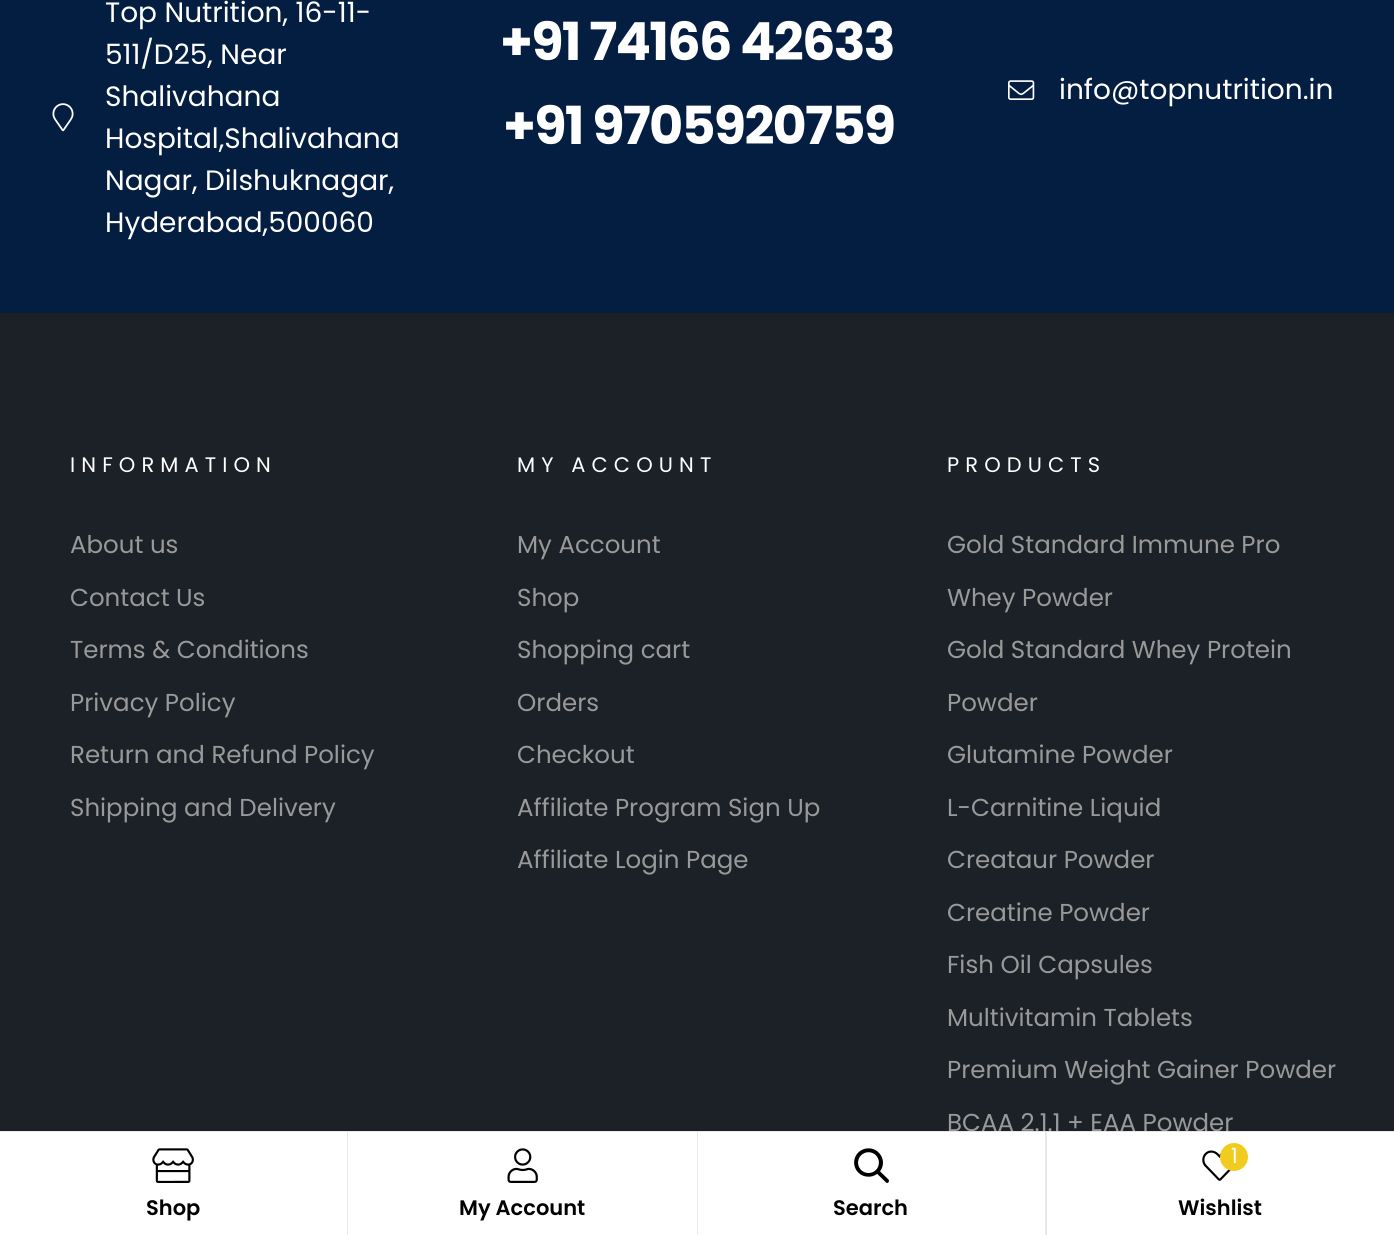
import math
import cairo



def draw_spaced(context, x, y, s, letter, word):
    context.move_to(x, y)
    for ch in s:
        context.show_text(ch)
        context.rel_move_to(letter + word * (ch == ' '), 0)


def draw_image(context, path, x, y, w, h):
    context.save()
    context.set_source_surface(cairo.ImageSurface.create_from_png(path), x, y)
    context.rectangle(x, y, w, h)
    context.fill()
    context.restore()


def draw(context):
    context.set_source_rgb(4 / 255, 30 / 255, 66 / 255)
    context.paint()
    draw_image(context, "images/1.png", 52, 103, 22, 29)
    draw_image(context, "images/2.png", 1008, 80, 27, 20)
    context.set_source_rgb(28 / 255, 33 / 255, 39 / 255)
    context.rectangle(0, 313, 1394, 818)
    context.fill()
    context.set_source_rgb(1, 1, 1)
    context.rectangle(0, 1132, 347, 103)
    context.fill()
    context.set_source_rgb(232 / 255, 232 / 255, 233 / 255)
    context.rectangle(347, 1132, 1, 103)
    context.fill()
    draw_image(context, "images/3.png", 152, 1148, 42, 35)
    context.set_source_rgb(1, 1, 1)
    context.rectangle(348, 1132, 349, 103)
    context.fill()
    context.set_source_rgb(232 / 255, 232 / 255, 233 / 255)
    context.rectangle(697, 1132, 1, 103)
    context.fill()
    draw_image(context, "images/4.png", 507, 1148, 31, 35)
    context.set_source_rgb(1, 1, 1)
    context.rectangle(698, 1132, 347, 103)
    context.fill()
    context.set_source_rgb(232 / 255, 232 / 255, 233 / 255)
    context.rectangle(1045, 1132, 2, 103)
    context.fill()
    draw_image(context, "images/5.png", 854, 1148, 35, 35)
    context.set_source_rgb(1, 1, 1)
    context.rectangle(1047, 1132, 347, 103)
    context.fill()
    draw_image(context, "images/6.png", 1202, 1150, 29, 31)
    context.set_source_rgb(242 / 255, 203 / 255, 31 / 255)
    context.arc(1234, 1157, 14, 0, 2 * math.pi)
    context.fill()
    context.select_font_face("Poppins")
    context.set_font_size(28)
    context.set_source_rgb(1, 1, 1)
    context.move_to(105, 22)
    context.show_text("Top Nutrition, 16-11-")
    context.move_to(105, 64)
    context.show_text("511/D25, Near")
    context.move_to(105, 106)
    context.show_text("Shalivahana")
    context.move_to(105, 148)
    context.show_text("Hospital,Shalivahana")
    context.move_to(105, 190)
    context.show_text("Nagar, Dilshuknagar,")
    context.move_to(105, 232)
    context.show_text("Hyderabad,500060")
    context.select_font_face("Poppins", cairo.FontSlant.NORMAL, cairo.FontWeight.BOLD)
    context.set_font_size(52.5)
    draw_spaced(context, 500, 60, "+91 74166 42633", -1.75, 0)
    draw_spaced(context, 503, 144, "+91 9705920759", -1.75, 0)
    context.select_font_face("Poppins")
    context.set_font_size(28)
    context.move_to(1059, 99)
    context.show_text("info@topnutrition.in")
    context.set_font_size(21)
    draw_spaced(context, 70, 472, "INFORMATION", 6.1, 0)
    context.set_font_size(24.5)
    context.set_source_rgb(153 / 255, 153 / 255, 153 / 255)
    context.move_to(70, 553)
    context.show_text("About us")
    context.move_to(70, 606)
    context.show_text("Contact Us")
    context.move_to(70, 658)
    context.show_text("Terms & Conditions")
    context.move_to(70, 711)
    context.show_text("Privacy Policy")
    context.move_to(70, 763)
    context.show_text("Return and Refund Policy")
    context.move_to(70, 816)
    context.show_text("Shipping and Delivery")
    context.set_font_size(21)
    context.set_source_rgb(1, 1, 1)
    draw_spaced(context, 517, 472, "MY ACCOUNT", 6.1, 0)
    context.set_font_size(24.5)
    context.set_source_rgb(153 / 255, 153 / 255, 153 / 255)
    context.move_to(517, 553)
    context.show_text("My Account")
    context.move_to(517, 606)
    context.show_text("Shop")
    context.move_to(517, 658)
    context.show_text("Shopping cart")
    context.move_to(517, 711)
    context.show_text("Orders")
    context.move_to(517, 763)
    context.show_text("Checkout")
    context.move_to(517, 816)
    context.show_text("Affiliate Program Sign Up")
    context.move_to(517, 868)
    context.show_text("Affiliate Login Page")
    context.set_font_size(21)
    context.set_source_rgb(1, 1, 1)
    draw_spaced(context, 947, 472, "PRODUCTS", 6.1, 0)
    context.set_font_size(24.5)
    context.set_source_rgb(153 / 255, 153 / 255, 153 / 255)
    context.move_to(947, 553)
    context.show_text("Gold Standard Immune Pro")
    context.move_to(947, 606)
    context.show_text("Whey Powder")
    context.move_to(947, 658)
    context.show_text("Gold Standard Whey Protein")
    context.move_to(947, 711)
    context.show_text("Powder")
    context.move_to(947, 763)
    context.show_text("Glutamine Powder")
    context.move_to(947, 816)
    context.show_text("L-Carnitine Liquid")
    context.move_to(947, 868)
    context.show_text("Creataur Powder")
    context.move_to(947, 921)
    context.show_text("Creatine Powder")
    context.move_to(947, 973)
    context.show_text("Fish Oil Capsules")
    context.move_to(947, 1026)
    context.show_text("Multivitamin Tablets")
    context.move_to(947, 1078)
    context.show_text("Premium Weight Gainer Powder")
    context.move_to(947, 1131)
    context.show_text("BCAA 2.1.1 + EAA Powder")
    context.set_source_rgb(232 / 255, 232 / 255, 233 / 255)
    context.rectangle(0, 1131, 1394, 1)
    context.fill()
    context.select_font_face("Poppins SemiBold")
    context.set_font_size(21)
    context.set_source_rgb(0, 0, 0)
    context.move_to(146, 1215)
    context.show_text("Shop")
    context.move_to(459, 1215)
    context.show_text("My Account")
    context.move_to(833, 1215)
    context.show_text("Search")
    context.select_font_face("Poppins")
    context.set_source_rgb(1, 1, 1)
    context.move_to(1231, 1163)
    context.show_text("1")
    context.select_font_face("Poppins SemiBold")
    context.set_source_rgb(0, 0, 0)
    context.move_to(1178, 1215)
    context.show_text("Wishlist")


surface = cairo.ImageSurface(cairo.Format.RGB24, 1394, 1235)
context = cairo.Context(surface)
options = cairo.FontOptions()
options.set_hint_metrics(cairo.HintMetrics.OFF)
options.set_hint_style(cairo.HintStyle.NONE)
context.set_font_options(options)
context.set_miter_limit(4)
draw(context)
surface.write_to_png("out.png")
